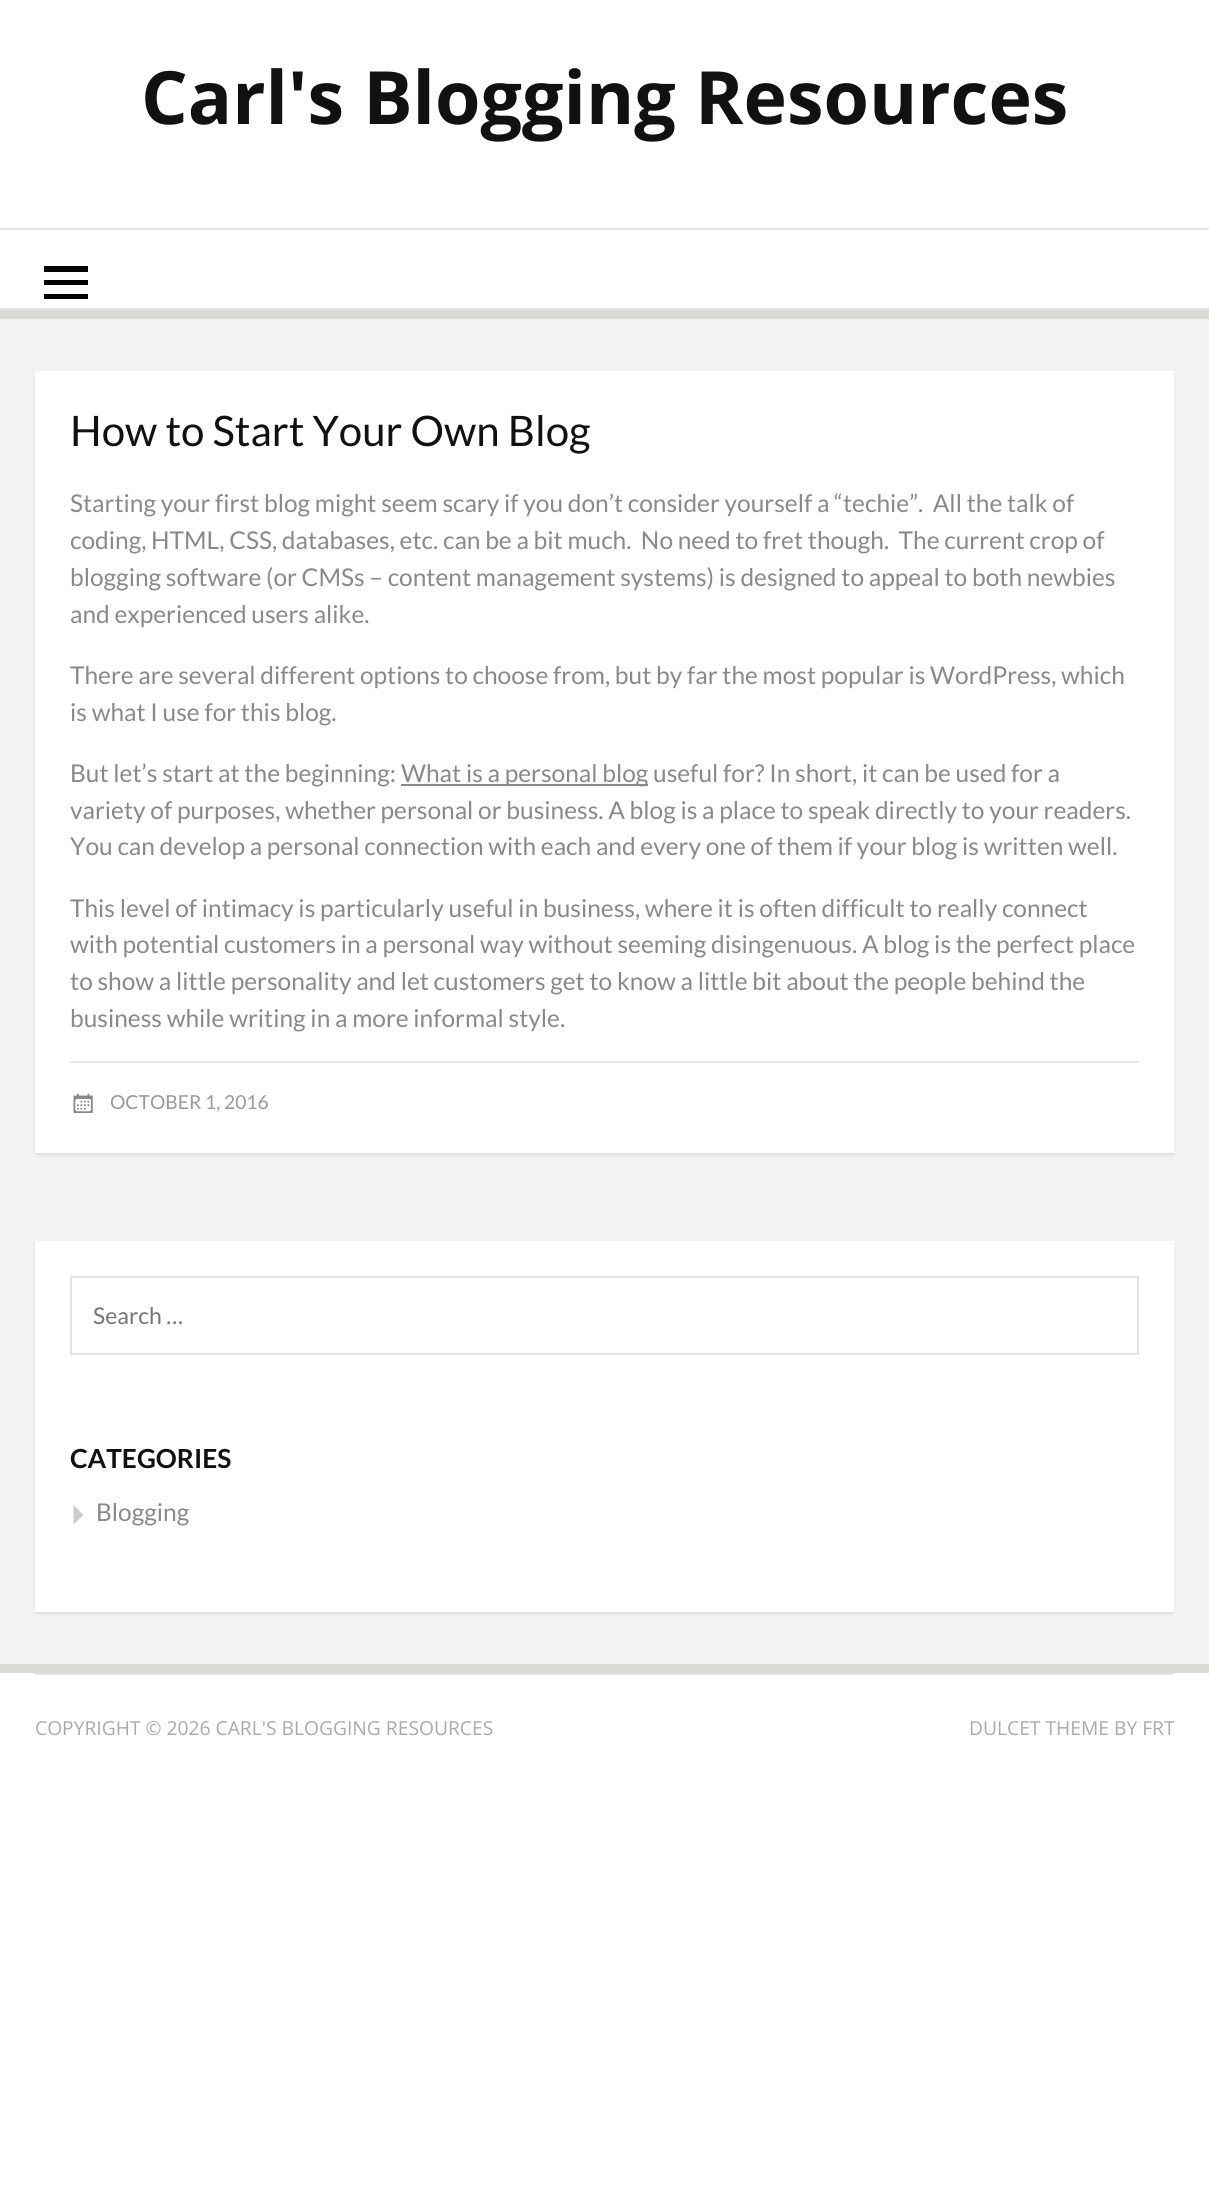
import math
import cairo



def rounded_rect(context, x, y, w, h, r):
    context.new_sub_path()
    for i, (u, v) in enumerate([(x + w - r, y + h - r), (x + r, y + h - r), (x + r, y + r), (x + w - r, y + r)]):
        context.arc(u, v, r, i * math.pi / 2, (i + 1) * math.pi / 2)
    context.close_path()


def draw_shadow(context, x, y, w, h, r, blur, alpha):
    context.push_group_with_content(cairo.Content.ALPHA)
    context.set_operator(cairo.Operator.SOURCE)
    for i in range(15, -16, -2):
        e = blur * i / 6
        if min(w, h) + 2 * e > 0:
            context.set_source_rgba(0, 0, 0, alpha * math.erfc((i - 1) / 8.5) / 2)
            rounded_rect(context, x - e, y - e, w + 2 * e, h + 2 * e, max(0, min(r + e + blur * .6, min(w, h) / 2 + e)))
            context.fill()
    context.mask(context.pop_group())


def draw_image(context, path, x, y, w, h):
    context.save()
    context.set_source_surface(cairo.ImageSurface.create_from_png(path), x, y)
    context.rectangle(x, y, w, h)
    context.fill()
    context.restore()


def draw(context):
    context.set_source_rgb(1, 1, 1)
    context.paint()
    context.set_source_rgb(230 / 255, 230 / 255, 230 / 255)
    context.rectangle(0, 228, 1209, 2)
    context.fill()
    context.rectangle(0, 308, 1209, 2)
    context.fill()
    context.set_source_rgb(0, 0, 0)
    context.new_path()
    context.move_to(44, 299)
    context.line_to(44, 294)
    context.line_to(88, 294)
    context.line_to(88, 299)
    context.close_path()
    context.move_to(44, 266)
    context.line_to(88, 266)
    context.line_to(88, 272)
    context.line_to(44, 272)
    context.close_path()
    context.move_to(44, 285)
    context.line_to(44, 280)
    context.line_to(88, 280)
    context.line_to(88, 285)
    context.close_path()
    context.fill()
    context.set_source_rgb(242 / 255, 242 / 255, 240 / 255)
    context.rectangle(0, 319, 1209, 1345)
    context.fill()
    context.set_source_rgb(218 / 255, 219 / 255, 212 / 255)
    context.rectangle(0, 310, 1209, 9)
    context.fill()
    context.rectangle(0, 1664, 1209, 9)
    context.fill()
    context.set_source_rgb(0, 0, 0)
    draw_shadow(context, 35, 373, 1139, 782, 0, 1, 0.08)
    context.set_source_rgb(1, 1, 1)
    context.rectangle(35, 371, 1139, 782)
    context.fill()
    context.set_source_rgb(137 / 255, 137 / 255, 137 / 255)
    context.rectangle(401, 784, 247, 2)
    context.fill()
    context.set_source_rgb(230 / 255, 230 / 255, 230 / 255)
    context.rectangle(70, 1061, 1069, 2)
    context.fill()
    draw_image(context, "images/1.png", 73, 1093, 20, 20)
    context.set_source_rgb(0, 0, 0)
    draw_shadow(context, 35, 1243, 1139, 371, 0, 1, 0.08)
    context.set_source_rgb(1, 1, 1)
    context.rectangle(35, 1241, 1139, 371)
    context.fill()
    context.rectangle(71, 1277, 1067, 77)
    context.set_source_rgb(227 / 255, 227 / 255, 227 / 255)
    context.stroke()
    context.set_source_rgb(204 / 255, 204 / 255, 204 / 255)
    context.new_path()
    context.move_to(73.5, 1524.5)
    context.line_to(73.5, 1505)
    context.line_to(83.5, 1515)
    context.close_path()
    context.fill()
    context.set_source_rgb(229 / 255, 229 / 255, 229 / 255)
    context.rectangle(35, 1673, 1139, 2)
    context.fill()
    context.select_font_face("Open Sans", cairo.FontSlant.NORMAL, cairo.FontWeight.BOLD)
    context.set_font_size(73.5)
    context.set_source_rgb(17 / 255, 17 / 255, 17 / 255)
    context.move_to(141, 124)
    context.show_text("Carl's Blogging Resources")
    context.select_font_face("Lato")
    context.set_font_size(42)
    context.move_to(70, 446)
    context.show_text("How to Start Your Own Blog")
    context.set_font_size(24.5)
    context.set_source_rgb(137 / 255, 137 / 255, 137 / 255)
    context.move_to(70, 512)
    context.show_text("Starting your first blog might seem scary if you don’t consider yourself a “techie”.  All the talk of")
    context.move_to(70, 549)
    context.show_text("coding, HTML, CSS, databases, etc. can be a bit much.  No need to fret though.  The current crop of")
    context.move_to(70, 586)
    context.show_text("blogging software (or CMSs – content management systems) is designed to appeal to both newbies")
    context.move_to(70, 623)
    context.show_text("and experienced users alike.")
    context.move_to(70, 684)
    context.show_text("There are several different options to choose from, but by far the most popular is WordPress, which")
    context.move_to(70, 721)
    context.show_text("is what I use for this blog.")
    context.move_to(70, 782)
    context.show_text("But let’s start at the beginning:")
    context.move_to(401, 782)
    context.show_text("What is a personal blog useful for? In short, it can be used for a")
    context.move_to(70, 819)
    context.show_text("variety of purposes, whether personal or business. A blog is a place to speak directly to your readers.")
    context.move_to(70, 855)
    context.show_text("You can develop a personal connection with each and every one of them if your blog is written well.")
    context.move_to(70, 917)
    context.show_text("This level of intimacy is particularly useful in business, where it is often difficult to really connect")
    context.move_to(70, 953)
    context.show_text("with potential customers in a personal way without seeming disingenuous. A blog is the perfect place")
    context.move_to(70, 990)
    context.show_text("to show a little personality and let customers get to know a little bit about the people behind the")
    context.move_to(70, 1027)
    context.show_text("business while writing in a more informal style.")
    context.set_font_size(19.25)
    context.set_source_rgb(153 / 255, 153 / 255, 153 / 255)
    context.move_to(110, 1109)
    context.show_text("OCTOBER 1, 2016")
    context.set_font_size(23)
    context.set_source_rgb(117 / 255, 117 / 255, 117 / 255)
    context.move_to(93, 1324)
    context.show_text("Search …")
    context.select_font_face("Lato", cairo.FontSlant.NORMAL, cairo.FontWeight.BOLD)
    context.set_font_size(26.25)
    context.set_source_rgb(17 / 255, 17 / 255, 17 / 255)
    context.move_to(70, 1468)
    context.show_text("CATEGORIES")
    context.select_font_face("Lato")
    context.set_font_size(24.5)
    context.set_source_rgb(137 / 255, 137 / 255, 137 / 255)
    context.move_to(96, 1521)
    context.show_text("Blogging")
    context.select_font_face("Open Sans")
    context.set_font_size(19.25)
    context.set_source_rgb(170 / 255, 170 / 255, 170 / 255)
    context.move_to(35, 1735)
    context.show_text("COPYRIGHT © 2026 CARL'S BLOGGING RESOURCES")
    context.move_to(969, 1735)
    context.show_text("DULCET THEME BY FRT")


surface = cairo.ImageSurface(cairo.Format.RGB24, 1209, 2212)
context = cairo.Context(surface)
options = cairo.FontOptions()
options.set_hint_metrics(cairo.HintMetrics.OFF)
options.set_hint_style(cairo.HintStyle.NONE)
context.set_font_options(options)
context.set_miter_limit(4)
draw(context)
surface.write_to_png("out.png")
